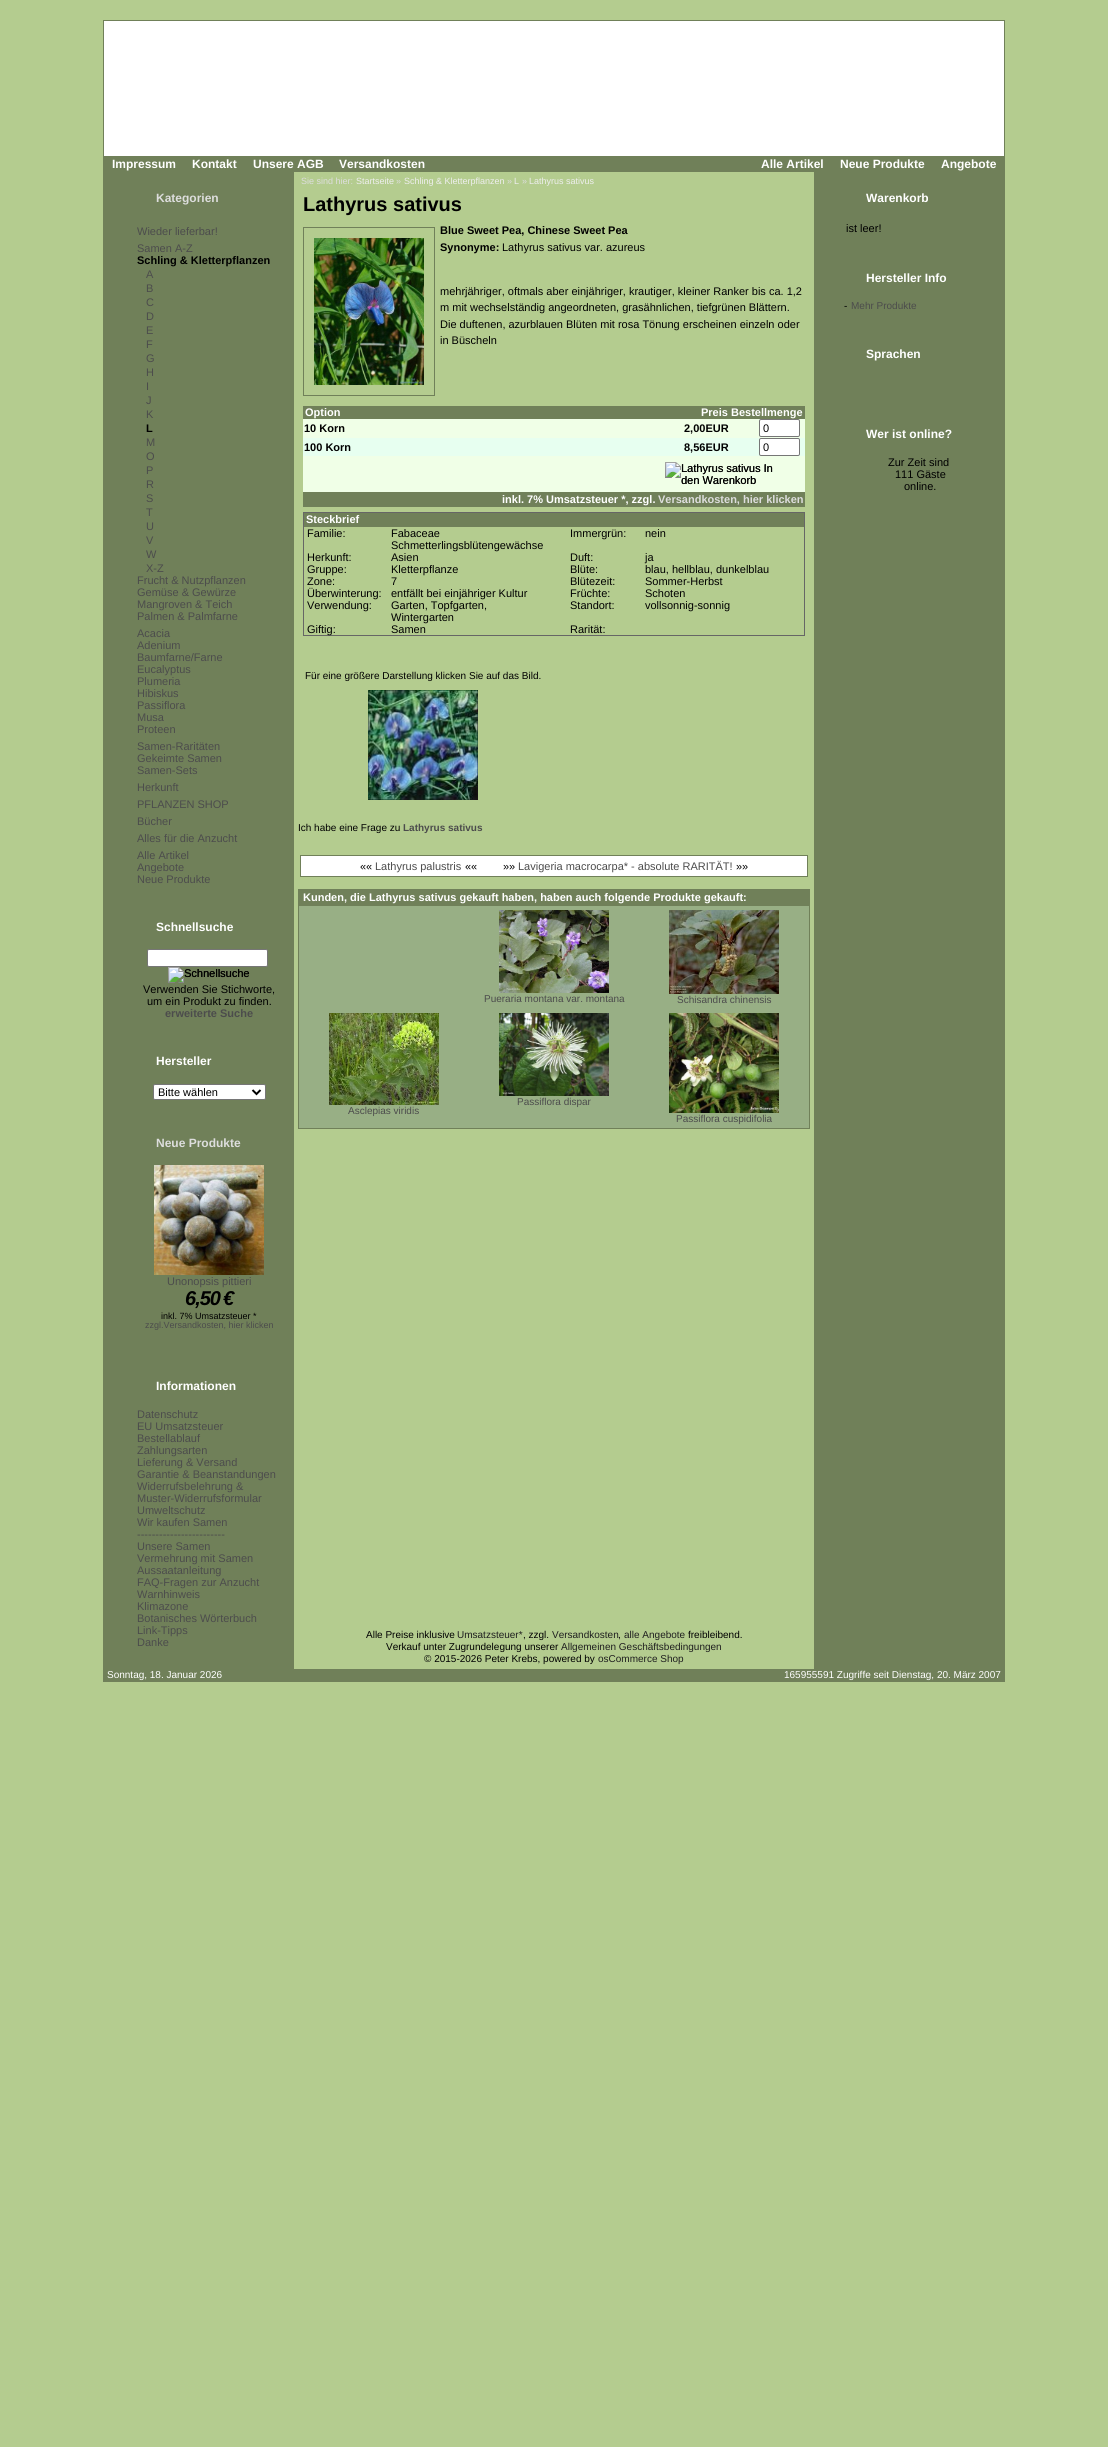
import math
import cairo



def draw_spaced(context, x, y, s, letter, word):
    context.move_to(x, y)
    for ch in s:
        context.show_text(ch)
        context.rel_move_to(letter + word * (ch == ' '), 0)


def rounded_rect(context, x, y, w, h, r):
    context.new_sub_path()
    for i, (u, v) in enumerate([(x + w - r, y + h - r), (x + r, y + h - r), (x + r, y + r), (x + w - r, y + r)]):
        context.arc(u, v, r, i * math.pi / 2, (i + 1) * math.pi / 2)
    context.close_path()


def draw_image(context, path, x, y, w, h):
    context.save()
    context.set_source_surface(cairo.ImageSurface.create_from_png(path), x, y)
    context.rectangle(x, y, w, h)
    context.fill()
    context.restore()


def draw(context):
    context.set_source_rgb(180 / 255, 204 / 255, 143 / 255)
    context.paint()
    context.set_source_rgb(1, 1, 1)
    context.rectangle(104, 21, 900, 135)
    context.fill()
    context.rectangle(103.5, 20.5, 901, 1661)
    context.set_source_rgb(112 / 255, 128 / 255, 89 / 255)
    context.set_line_width(1)
    context.stroke()
    context.rectangle(104, 156, 900, 16)
    context.fill()
    context.rectangle(104, 172, 190, 1497)
    context.fill()
    context.set_source_rgb(1, 1, 1)
    rounded_rect(context, 147.5, 949.5, 120, 17, 1.5)
    context.fill_preserve()
    context.set_source_rgb(118 / 255, 118 / 255, 118 / 255)
    context.stroke()
    draw_image(context, "images/1.png", 168, 967, 82, 16)
    context.set_source_rgb(1, 1, 1)
    rounded_rect(context, 153.5, 1084.5, 112, 15, 1.5)
    context.fill_preserve()
    context.set_source_rgb(118 / 255, 118 / 255, 118 / 255)
    context.stroke()
    context.new_path()
    context.move_to(252.5, 1090)
    context.line_to(256.5, 1094)
    context.line_to(260.5, 1090)
    context.set_source_rgb(0, 0, 0)
    context.set_line_width(2)
    context.stroke()
    draw_image(context, "images/2.png", 154, 1165, 110, 110)
    context.rectangle(303.5, 227.5, 131, 168)
    context.set_source_rgb(112 / 255, 128 / 255, 89 / 255)
    context.set_line_width(1)
    context.stroke()
    draw_image(context, "images/3.png", 314, 238, 110, 147)
    context.rectangle(303, 406, 502, 13)
    context.fill()
    context.set_source_rgb(240 / 255, 1, 231 / 255)
    context.rectangle(303, 419, 502, 19)
    context.fill()
    context.set_source_rgb(1, 1, 1)
    rounded_rect(context, 759.5, 419.5, 40, 17, 1.5)
    context.fill_preserve()
    context.set_source_rgb(118 / 255, 118 / 255, 118 / 255)
    context.stroke()
    context.set_source_rgb(231 / 255, 1, 240 / 255)
    context.rectangle(303, 438, 502, 18)
    context.fill()
    context.set_source_rgb(1, 1, 1)
    rounded_rect(context, 759.5, 438.5, 40, 17, 1.5)
    context.fill_preserve()
    context.set_source_rgb(118 / 255, 118 / 255, 118 / 255)
    context.stroke()
    context.set_source_rgb(240 / 255, 1, 231 / 255)
    context.rectangle(303, 456, 502, 36)
    context.fill()
    draw_image(context, "images/4.png", 665, 462, 108, 22)
    context.set_source_rgb(112 / 255, 128 / 255, 89 / 255)
    context.rectangle(303, 492, 502, 15)
    context.fill()
    context.rectangle(303.5, 512.5, 501, 123)
    context.set_source_rgb(102 / 255, 102 / 255, 102 / 255)
    context.stroke()
    context.set_source_rgb(112 / 255, 128 / 255, 89 / 255)
    context.rectangle(304, 513, 500, 14)
    context.fill()
    draw_image(context, "images/5.png", 368, 690, 110, 110)
    context.set_source_rgb(1, 1, 1)
    context.rectangle(300.5, 855.5, 507, 21)
    context.fill_preserve()
    context.set_source_rgb(112 / 255, 128 / 255, 89 / 255)
    context.stroke()
    context.rectangle(298, 889, 512, 240)
    context.fill()
    context.set_source_rgb(152 / 255, 175 / 255, 133 / 255)
    context.rectangle(299, 906, 510, 222)
    context.fill()
    draw_image(context, "images/6.png", 499, 910, 110, 83)
    draw_image(context, "images/7.png", 669, 910, 110, 84)
    draw_image(context, "images/8.png", 499, 1013, 110, 83)
    draw_image(context, "images/9.png", 329, 1013, 110, 92)
    draw_image(context, "images/10.png", 669, 1013, 110, 100)
    context.set_source_rgb(112 / 255, 128 / 255, 89 / 255)
    context.rectangle(814, 172, 190, 1497)
    context.fill()
    context.rectangle(104, 1669, 900, 12)
    context.fill()
    context.select_font_face("Liberation Sans", cairo.FontSlant.NORMAL, cairo.FontWeight.BOLD)
    context.set_font_size(12)
    context.set_source_rgb(1, 1, 1)
    context.move_to(112, 168)
    context.show_text("Impressum")
    context.move_to(192, 168)
    context.show_text("Kontakt")
    context.move_to(253, 168)
    context.show_text("Unsere AGB")
    context.move_to(339, 168)
    context.show_text("Versandkosten")
    context.move_to(761, 168)
    context.show_text("Alle Artikel")
    context.move_to(840, 168)
    context.show_text("Neue Produkte")
    context.move_to(941, 168)
    context.show_text("Angebote")
    context.set_source_rgb(221 / 255, 221 / 255, 221 / 255)
    context.move_to(156, 202)
    context.show_text("Kategorien")
    context.select_font_face("Liberation Sans")
    context.set_font_size(11)
    context.set_source_rgb(76 / 255, 76 / 255, 76 / 255)
    context.move_to(137, 235)
    context.show_text("Wieder lieferbar!")
    context.move_to(137, 252)
    context.show_text("Samen A-Z")
    context.select_font_face("Liberation Sans", cairo.FontSlant.NORMAL, cairo.FontWeight.BOLD)
    context.set_source_rgb(0, 0, 0)
    context.move_to(137, 264)
    context.show_text("Schling & Kletterpflanzen")
    context.select_font_face("Liberation Sans")
    context.set_source_rgb(76 / 255, 76 / 255, 76 / 255)
    context.move_to(146, 278)
    context.show_text("A")
    context.move_to(146, 292)
    context.show_text("B")
    context.move_to(146, 306)
    context.show_text("C")
    context.move_to(146, 320)
    context.show_text("D")
    context.move_to(146, 334)
    context.show_text("E")
    context.move_to(146, 348)
    context.show_text("F")
    context.move_to(146, 362)
    context.show_text("G")
    context.move_to(146, 376)
    context.show_text("H")
    context.move_to(146, 390)
    context.show_text("I")
    context.move_to(146, 404)
    context.show_text("J")
    context.move_to(146, 418)
    context.show_text("K")
    context.select_font_face("Liberation Sans", cairo.FontSlant.NORMAL, cairo.FontWeight.BOLD)
    context.set_source_rgb(0, 0, 0)
    context.move_to(146, 432)
    context.show_text("L")
    context.select_font_face("Liberation Sans")
    context.set_source_rgb(76 / 255, 76 / 255, 76 / 255)
    context.move_to(146, 446)
    context.show_text("M")
    context.move_to(146, 460)
    context.show_text("O")
    context.move_to(146, 474)
    context.show_text("P")
    context.move_to(146, 488)
    context.show_text("R")
    context.move_to(146, 502)
    context.show_text("S")
    context.move_to(146, 516)
    context.show_text("T")
    context.move_to(146, 530)
    context.show_text("U")
    context.move_to(146, 544)
    context.show_text("V")
    context.move_to(146, 558)
    context.show_text("W")
    context.move_to(146, 572)
    context.show_text("X-Z")
    context.move_to(137, 584)
    context.show_text("Frucht & Nutzpflanzen")
    context.move_to(137, 596)
    context.show_text("Gemüse & Gewürze")
    context.move_to(137, 608)
    context.show_text("Mangroven & Teich")
    context.move_to(137, 620)
    context.show_text("Palmen & Palmfarne")
    context.move_to(137, 637)
    context.show_text("Acacia")
    context.move_to(137, 649)
    context.show_text("Adenium")
    context.move_to(137, 661)
    context.show_text("Baumfarne/Farne")
    context.move_to(137, 673)
    context.show_text("Eucalyptus")
    context.move_to(137, 685)
    context.show_text("Plumeria")
    context.move_to(137, 697)
    context.show_text("Hibiskus")
    context.move_to(137, 709)
    context.show_text("Passiflora")
    context.move_to(137, 721)
    context.show_text("Musa")
    context.move_to(137, 733)
    context.show_text("Proteen")
    context.move_to(137, 750)
    context.show_text("Samen-Raritäten")
    context.move_to(137, 762)
    context.show_text("Gekeimte Samen")
    context.move_to(137, 774)
    context.show_text("Samen-Sets")
    context.move_to(137, 791)
    context.show_text("Herkunft")
    context.move_to(137, 808)
    context.show_text("PFLANZEN SHOP")
    context.move_to(137, 825)
    context.show_text("Bücher")
    context.move_to(137, 842)
    context.show_text("Alles für die Anzucht")
    context.move_to(137, 859)
    context.show_text("Alle Artikel")
    context.move_to(137, 871)
    context.show_text("Angebote")
    context.move_to(137, 883)
    context.show_text("Neue Produkte")
    context.select_font_face("Liberation Sans", cairo.FontSlant.NORMAL, cairo.FontWeight.BOLD)
    context.set_font_size(12)
    context.set_source_rgb(1, 1, 1)
    context.move_to(156, 931)
    context.show_text("Schnellsuche")
    context.select_font_face("Liberation Sans")
    context.set_font_size(11)
    context.set_source_rgb(0, 0, 0)
    context.move_to(184, 977)
    context.show_text("Schnellsuche")
    context.move_to(143, 993)
    context.show_text("Verwenden Sie Stichworte,")
    context.move_to(147, 1005)
    context.show_text("um ein Produkt zu finden.")
    context.select_font_face("Liberation Sans", cairo.FontSlant.NORMAL, cairo.FontWeight.BOLD)
    context.set_source_rgb(76 / 255, 76 / 255, 76 / 255)
    context.move_to(165, 1017)
    context.show_text("erweiterte Suche")
    context.set_font_size(12)
    context.set_source_rgb(1, 1, 1)
    context.move_to(156, 1065)
    context.show_text("Hersteller")
    context.select_font_face("Liberation Sans")
    context.set_font_size(11)
    context.set_source_rgb(0, 0, 0)
    context.move_to(158, 1096)
    context.show_text("Bitte wählen")
    context.select_font_face("Liberation Sans", cairo.FontSlant.NORMAL, cairo.FontWeight.BOLD)
    context.set_font_size(12)
    context.set_source_rgb(221 / 255, 221 / 255, 221 / 255)
    context.move_to(156, 1147)
    context.show_text("Neue Produkte")
    context.select_font_face("Liberation Sans")
    context.set_font_size(11)
    context.set_source_rgb(76 / 255, 76 / 255, 76 / 255)
    context.move_to(167, 1285)
    context.show_text("Unonopsis pittieri")
    context.select_font_face("Liberation Sans", cairo.FontSlant.ITALIC, cairo.FontWeight.BOLD)
    context.set_font_size(20)
    context.set_source_rgb(0, 0, 0)
    draw_spaced(context, 185, 1305, "6,50", -1, 0)
    draw_spaced(context, 223, 1305, "€", -1, 0)
    context.select_font_face("Liberation Sans")
    context.set_font_size(9)
    context.move_to(161, 1319)
    context.show_text("inkl. 7% Umsatzsteuer *")
    context.set_source_rgb(76 / 255, 76 / 255, 76 / 255)
    context.move_to(145, 1328)
    context.show_text("zzgl.Versandkosten, hier klicken")
    context.select_font_face("Liberation Sans", cairo.FontSlant.NORMAL, cairo.FontWeight.BOLD)
    context.set_font_size(12)
    context.set_source_rgb(1, 1, 1)
    context.move_to(156, 1390)
    context.show_text("Informationen")
    context.select_font_face("Liberation Sans")
    context.set_font_size(11)
    context.set_source_rgb(76 / 255, 76 / 255, 76 / 255)
    context.move_to(137, 1418)
    context.show_text("Datenschutz")
    context.move_to(137, 1430)
    context.show_text("EU Umsatzsteuer")
    context.move_to(137, 1442)
    context.show_text("Bestellablauf")
    context.move_to(137, 1454)
    context.show_text("Zahlungsarten")
    context.move_to(137, 1466)
    context.show_text("Lieferung & Versand")
    context.move_to(137, 1478)
    context.show_text("Garantie & Beanstandungen")
    context.move_to(137, 1490)
    context.show_text("Widerrufsbelehrung &")
    context.move_to(137, 1502)
    context.show_text("Muster-Widerrufsformular")
    context.move_to(137, 1514)
    context.show_text("Umweltschutz")
    context.move_to(137, 1526)
    context.show_text("Wir kaufen Samen")
    context.move_to(137, 1538)
    context.show_text("------------------------")
    context.move_to(137, 1550)
    context.show_text("Unsere Samen")
    context.move_to(137, 1562)
    context.show_text("Vermehrung mit Samen")
    context.move_to(137, 1574)
    context.show_text("Aussaatanleitung")
    context.move_to(137, 1586)
    context.show_text("FAQ-Fragen zur Anzucht")
    context.move_to(137, 1598)
    context.show_text("Warnhinweis")
    context.move_to(137, 1610)
    context.show_text("Klimazone")
    context.move_to(137, 1622)
    context.show_text("Botanisches Wörterbuch")
    context.move_to(137, 1634)
    context.show_text("Link-Tipps")
    context.move_to(137, 1646)
    context.show_text("Danke")
    context.set_font_size(9)
    context.set_source_rgb(221 / 255, 221 / 255, 221 / 255)
    context.move_to(301, 184)
    context.show_text("Sie sind hier:")
    context.set_source_rgb(238 / 255, 238 / 255, 238 / 255)
    context.move_to(356, 184)
    context.show_text("Startseite")
    context.set_source_rgb(221 / 255, 221 / 255, 221 / 255)
    context.move_to(396, 184)
    context.show_text("»")
    context.set_source_rgb(238 / 255, 238 / 255, 238 / 255)
    context.move_to(404, 184)
    context.show_text("Schling & Kletterpflanzen")
    context.set_source_rgb(221 / 255, 221 / 255, 221 / 255)
    context.move_to(507, 184)
    context.show_text("»")
    context.set_source_rgb(238 / 255, 238 / 255, 238 / 255)
    context.move_to(514, 184)
    context.show_text("L")
    context.set_source_rgb(221 / 255, 221 / 255, 221 / 255)
    context.move_to(522, 184)
    context.show_text("»")
    context.set_source_rgb(238 / 255, 238 / 255, 238 / 255)
    context.move_to(529, 184)
    context.show_text("Lathyrus sativus")
    context.select_font_face("Liberation Sans", cairo.FontSlant.NORMAL, cairo.FontWeight.BOLD)
    context.set_font_size(20)
    context.set_source_rgb(0, 0, 0)
    context.move_to(303, 211)
    context.show_text("Lathyrus sativus")
    context.set_font_size(11)
    context.move_to(440, 234)
    context.show_text("Blue Sweet Pea, Chinese Sweet Pea")
    context.move_to(440, 251)
    context.show_text("Synonyme:")
    context.select_font_face("Liberation Sans")
    context.move_to(502, 251)
    context.show_text("Lathyrus sativus var. azureus")
    context.move_to(440, 295)
    context.show_text("mehrjähriger, oftmals aber einjähriger, krautiger, kleiner Ranker bis ca. 1,2")
    context.move_to(440, 311)
    context.show_text("m mit wechselständig angeordneten, grasähnlichen, tiefgrünen Blättern.")
    context.move_to(440, 328)
    context.show_text("Die duftenen, azurblauen Blüten mit rosa Tönung erscheinen einzeln oder")
    context.move_to(440, 344)
    context.show_text("in Büscheln")
    context.select_font_face("Liberation Sans", cairo.FontSlant.NORMAL, cairo.FontWeight.BOLD)
    context.set_source_rgb(1, 1, 1)
    context.move_to(305, 416)
    context.show_text("Option")
    context.move_to(701, 416)
    context.show_text("Preis")
    context.move_to(731, 416)
    context.show_text("Bestellmenge")
    context.set_source_rgb(0, 0, 0)
    context.move_to(304, 432)
    context.show_text("10 Korn")
    context.move_to(684, 432)
    context.show_text("2,00EUR")
    context.select_font_face("Liberation Sans")
    context.move_to(763, 432)
    context.show_text("0")
    context.select_font_face("Liberation Sans", cairo.FontSlant.NORMAL, cairo.FontWeight.BOLD)
    context.move_to(304, 451)
    context.show_text("100 Korn")
    context.move_to(684, 451)
    context.show_text("8,56EUR")
    context.select_font_face("Liberation Sans")
    context.move_to(763, 451)
    context.show_text("0")
    context.move_to(681, 472)
    context.show_text("Lathyrus sativus In")
    context.move_to(681, 484)
    context.show_text("den Warenkorb")
    context.select_font_face("Liberation Sans", cairo.FontSlant.NORMAL, cairo.FontWeight.BOLD)
    context.set_source_rgb(1, 1, 1)
    context.move_to(502, 503)
    context.show_text("inkl. 7% Umsatzsteuer *, zzgl.")
    context.set_source_rgb(221 / 255, 221 / 255, 221 / 255)
    context.move_to(658, 503)
    context.show_text("Versandkosten, hier klicken")
    context.set_source_rgb(1, 1, 1)
    context.move_to(306, 523)
    context.show_text("Steckbrief")
    context.select_font_face("Liberation Sans")
    context.set_source_rgb(0, 0, 0)
    context.move_to(307, 537)
    context.show_text("Familie:")
    context.move_to(391, 537)
    context.show_text("Fabaceae")
    context.move_to(391, 549)
    context.show_text("Schmetterlingsblütengewächse")
    context.move_to(570, 537)
    context.show_text("Immergrün:")
    context.move_to(645, 537)
    context.show_text("nein")
    context.move_to(307, 561)
    context.show_text("Herkunft:")
    context.move_to(391, 561)
    context.show_text("Asien")
    context.move_to(570, 561)
    context.show_text("Duft:")
    context.move_to(645, 561)
    context.show_text("ja")
    context.move_to(307, 573)
    context.show_text("Gruppe:")
    context.move_to(391, 573)
    context.show_text("Kletterpflanze")
    context.move_to(570, 573)
    context.show_text("Blüte:")
    context.move_to(645, 573)
    context.show_text("blau, hellblau, dunkelblau")
    context.move_to(307, 585)
    context.show_text("Zone:")
    context.move_to(391, 585)
    context.show_text("7")
    context.move_to(570, 585)
    context.show_text("Blütezeit:")
    context.move_to(645, 585)
    context.show_text("Sommer-Herbst")
    context.move_to(307, 597)
    context.show_text("Überwinterung:")
    context.move_to(391, 597)
    context.show_text("entfällt bei einjähriger Kultur")
    context.move_to(570, 597)
    context.show_text("Früchte:")
    context.move_to(645, 597)
    context.show_text("Schoten")
    context.move_to(307, 609)
    context.show_text("Verwendung:")
    context.move_to(391, 609)
    context.show_text("Garten, Topfgarten,")
    context.move_to(391, 621)
    context.show_text("Wintergarten")
    context.move_to(570, 609)
    context.show_text("Standort:")
    context.move_to(645, 609)
    context.show_text("vollsonnig-sonnig")
    context.move_to(307, 633)
    context.show_text("Giftig:")
    context.move_to(391, 633)
    context.show_text("Samen")
    context.move_to(570, 633)
    context.show_text("Rarität:")
    context.set_font_size(10)
    context.move_to(305, 679)
    context.show_text("Für eine größere Darstellung klicken Sie auf das Bild.")
    context.move_to(298, 831)
    context.show_text("Ich habe eine Frage zu")
    context.select_font_face("Liberation Sans", cairo.FontSlant.NORMAL, cairo.FontWeight.BOLD)
    context.set_source_rgb(76 / 255, 76 / 255, 76 / 255)
    context.move_to(403, 831)
    context.show_text("Lathyrus sativus")
    context.select_font_face("Liberation Sans")
    context.set_font_size(11)
    context.set_source_rgb(0, 0, 0)
    context.move_to(360, 870)
    context.show_text("««")
    context.set_source_rgb(76 / 255, 76 / 255, 76 / 255)
    context.move_to(375, 870)
    context.show_text("Lathyrus palustris")
    context.set_source_rgb(0, 0, 0)
    context.move_to(465, 870)
    context.show_text("««")
    context.move_to(503, 870)
    context.show_text("»»")
    context.set_source_rgb(76 / 255, 76 / 255, 76 / 255)
    context.move_to(518, 870)
    context.show_text("Lavigeria macrocarpa* - absolute RARITÄT!")
    context.set_source_rgb(0, 0, 0)
    context.move_to(736, 870)
    context.show_text("»»")
    context.select_font_face("Liberation Sans", cairo.FontSlant.NORMAL, cairo.FontWeight.BOLD)
    context.set_source_rgb(1, 1, 1)
    context.move_to(303, 901)
    context.show_text("Kunden, die Lathyrus sativus gekauft haben, haben auch folgende Produkte gekauft:")
    context.select_font_face("Liberation Sans")
    context.set_font_size(10)
    context.set_source_rgb(76 / 255, 76 / 255, 76 / 255)
    context.move_to(484, 1002)
    context.show_text("Pueraria montana var. montana")
    context.move_to(677, 1003)
    context.show_text("Schisandra chinensis")
    context.move_to(517, 1105)
    context.show_text("Passiflora dispar")
    context.move_to(348, 1114)
    context.show_text("Asclepias viridis")
    context.move_to(676, 1122)
    context.show_text("Passiflora cuspidifolia")
    context.select_font_face("Liberation Sans", cairo.FontSlant.NORMAL, cairo.FontWeight.BOLD)
    context.set_font_size(12)
    context.set_source_rgb(1, 1, 1)
    context.move_to(866, 202)
    context.show_text("Warenkorb")
    context.select_font_face("Liberation Sans")
    context.set_font_size(11)
    context.set_source_rgb(0, 0, 0)
    context.move_to(846, 232)
    context.show_text("ist leer!")
    context.select_font_face("Liberation Sans", cairo.FontSlant.NORMAL, cairo.FontWeight.BOLD)
    context.set_font_size(12)
    context.set_source_rgb(1, 1, 1)
    context.move_to(866, 282)
    context.show_text("Hersteller Info")
    context.select_font_face("Liberation Sans")
    context.set_font_size(10)
    context.set_source_rgb(0, 0, 0)
    context.move_to(844, 309)
    context.show_text("-")
    context.set_source_rgb(76 / 255, 76 / 255, 76 / 255)
    context.move_to(851, 309)
    context.show_text("Mehr Produkte")
    context.select_font_face("Liberation Sans", cairo.FontSlant.NORMAL, cairo.FontWeight.BOLD)
    context.set_font_size(12)
    context.set_source_rgb(1, 1, 1)
    context.move_to(866, 358)
    context.show_text("Sprachen")
    context.move_to(866, 438)
    context.show_text("Wer ist online?")
    context.select_font_face("Liberation Sans")
    context.set_font_size(11)
    context.set_source_rgb(0, 0, 0)
    context.move_to(888, 466)
    context.show_text("Zur Zeit sind")
    context.move_to(895, 478)
    context.show_text("111 Gäste")
    context.move_to(904, 490)
    context.show_text("online.")
    context.set_font_size(10)
    context.move_to(366, 1638)
    context.show_text("Alle Preise inklusive")
    context.set_source_rgb(31 / 255, 31 / 255, 31 / 255)
    context.move_to(457, 1638)
    context.show_text("Umsatzsteuer*")
    context.set_source_rgb(0, 0, 0)
    context.move_to(523, 1638)
    context.show_text(", zzgl.")
    context.set_source_rgb(31 / 255, 31 / 255, 31 / 255)
    context.move_to(552, 1638)
    context.show_text("Versandkosten")
    context.set_source_rgb(0, 0, 0)
    context.move_to(618, 1638)
    context.show_text(",")
    context.set_source_rgb(31 / 255, 31 / 255, 31 / 255)
    context.move_to(624, 1638)
    context.show_text("alle Angebote")
    context.set_source_rgb(0, 0, 0)
    context.move_to(688, 1638)
    context.show_text("freibleibend.")
    context.move_to(386, 1650)
    context.show_text("Verkauf unter Zugrundelegung unserer")
    context.set_source_rgb(31 / 255, 31 / 255, 31 / 255)
    context.move_to(561, 1650)
    context.show_text("Allgemeinen Geschäftsbedingungen")
    context.set_source_rgb(0, 0, 0)
    context.move_to(424, 1662)
    context.show_text("© 2015-2026 Peter Krebs, powered by")
    context.set_source_rgb(31 / 255, 31 / 255, 31 / 255)
    context.move_to(598, 1662)
    context.show_text("osCommerce Shop")
    context.set_source_rgb(1, 1, 1)
    context.move_to(107, 1678)
    context.show_text("Sonntag, 18. Januar 2026")
    context.move_to(784, 1678)
    context.show_text("165955591 Zugriffe seit Dienstag, 20. März 2007")


surface = cairo.ImageSurface(cairo.Format.RGB24, 1108, 2447)
context = cairo.Context(surface)
options = cairo.FontOptions()
options.set_hint_metrics(cairo.HintMetrics.OFF)
options.set_hint_style(cairo.HintStyle.NONE)
context.set_font_options(options)
context.set_miter_limit(4)
draw(context)
surface.write_to_png("out.png")
